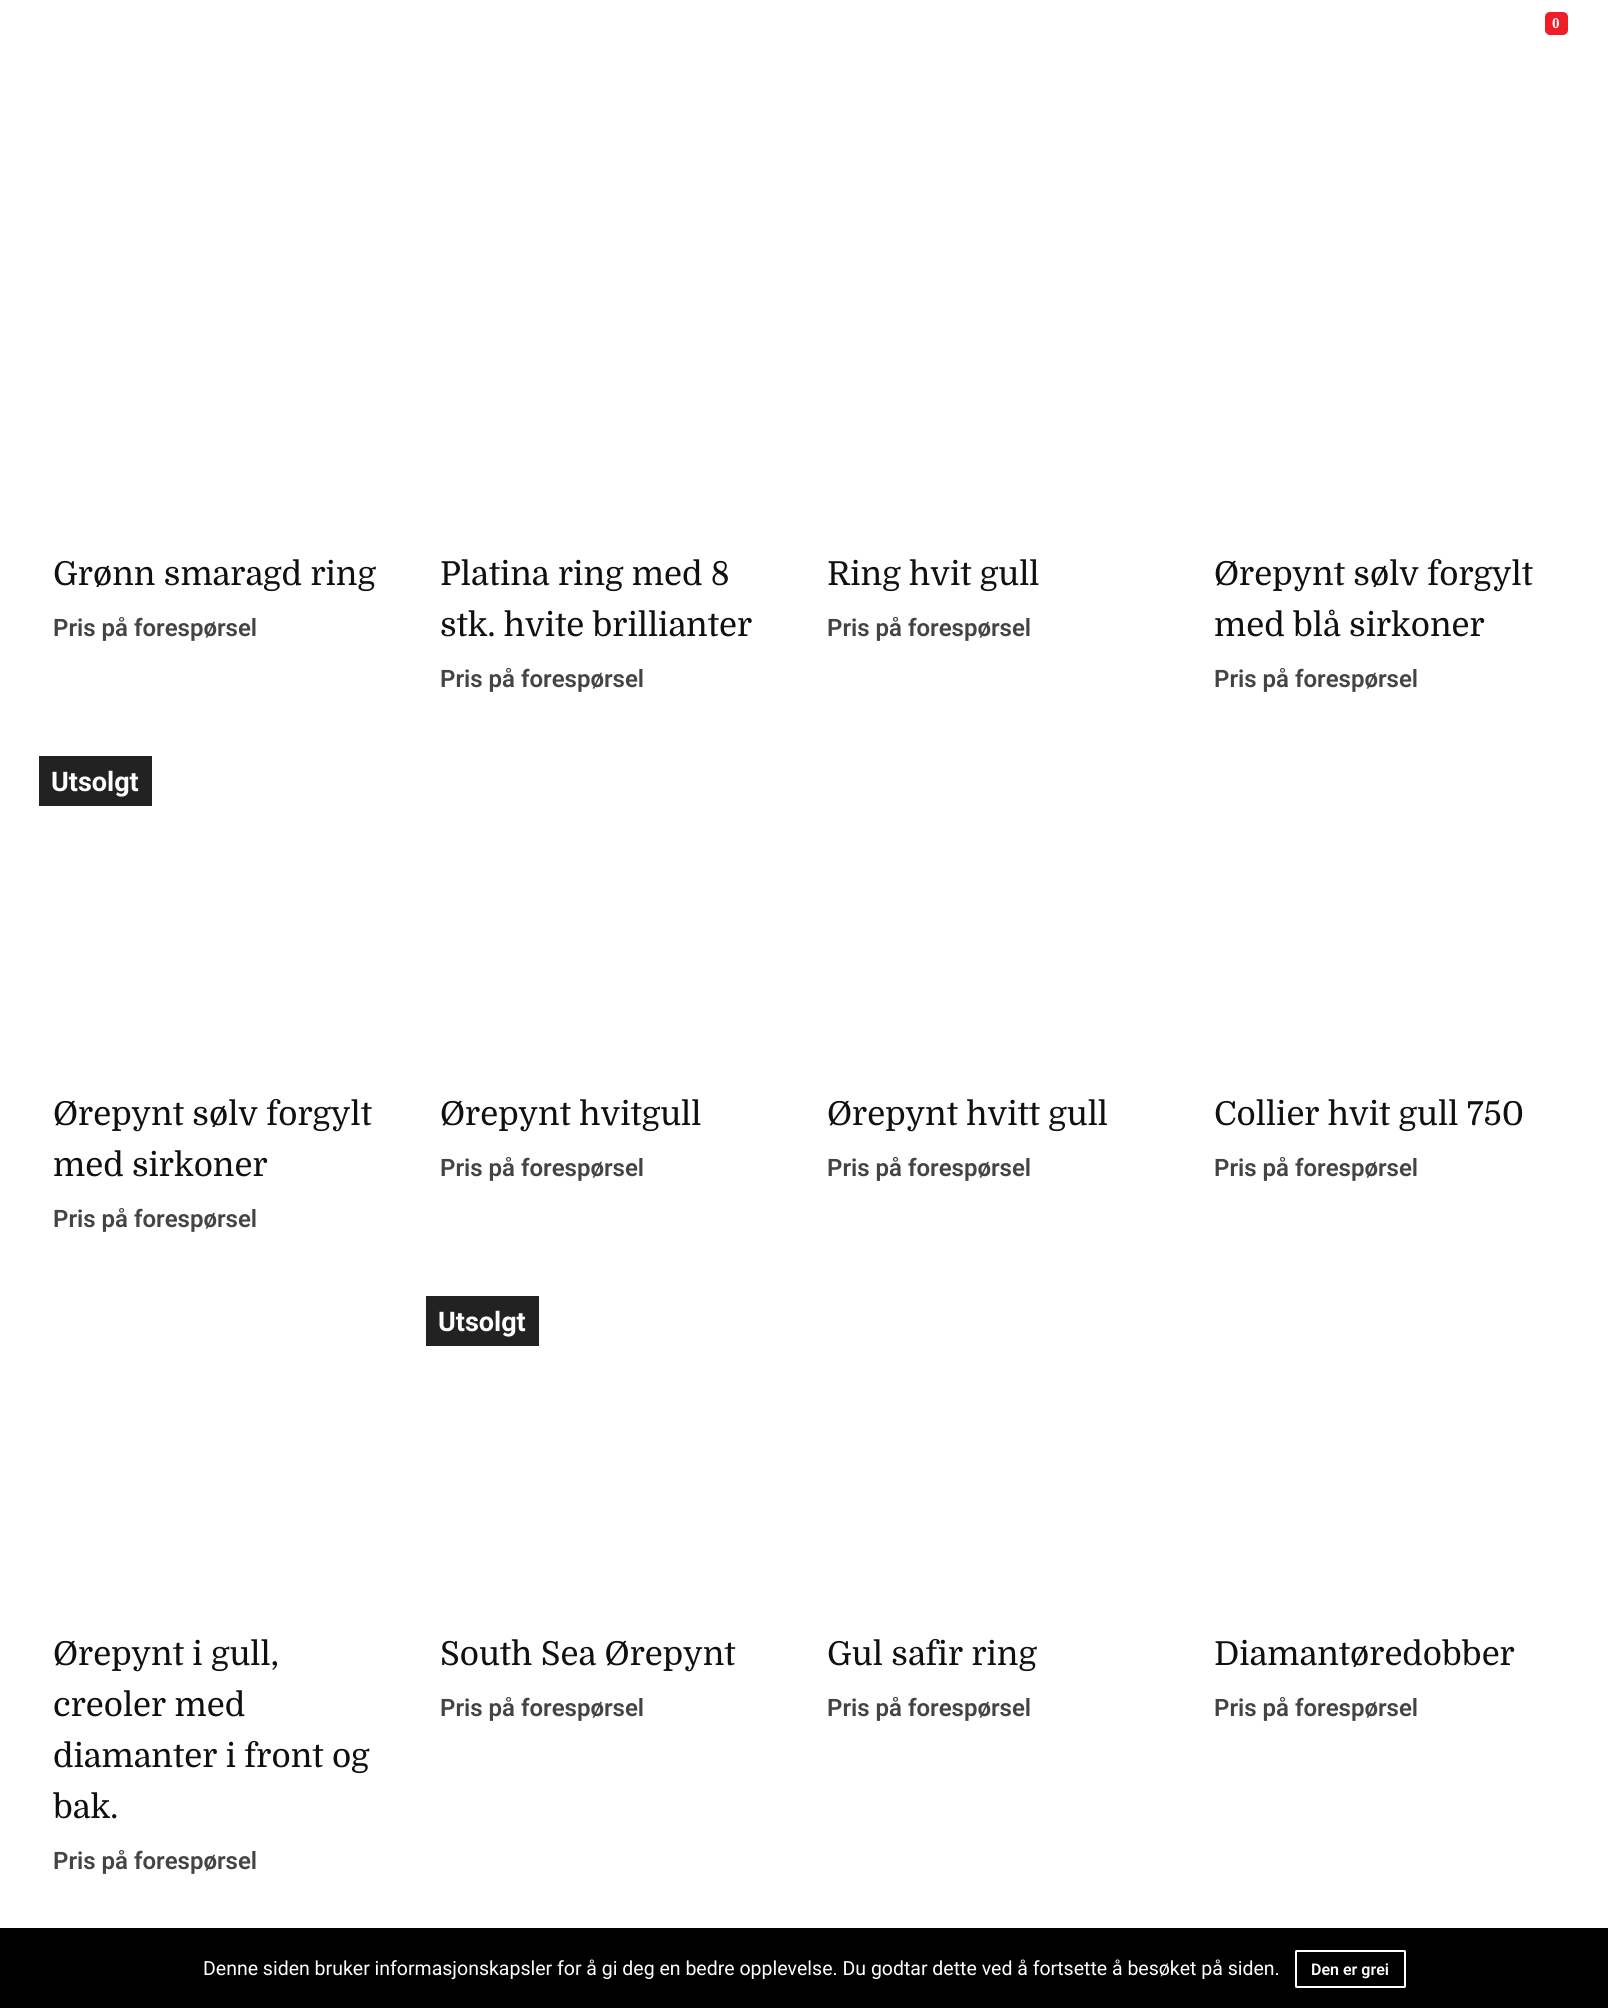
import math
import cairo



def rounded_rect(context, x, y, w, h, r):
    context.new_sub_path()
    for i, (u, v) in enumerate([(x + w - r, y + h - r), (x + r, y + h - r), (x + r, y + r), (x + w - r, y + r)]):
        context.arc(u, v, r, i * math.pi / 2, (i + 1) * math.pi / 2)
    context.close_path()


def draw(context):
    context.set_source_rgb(1, 1, 1)
    context.paint()
    context.set_source_rgb(238 / 255, 29 / 255, 38 / 255)
    rounded_rect(context, 1545, 12, 23, 23, 5)
    context.fill()
    context.set_source_rgb(34 / 255, 34 / 255, 34 / 255)
    context.rectangle(39, 756, 113, 50)
    context.fill()
    context.rectangle(426, 1296, 113, 50)
    context.fill()
    context.set_source_rgb(0, 0, 0)
    context.rectangle(0, 1928, 1608, 80)
    context.fill()
    rounded_rect(context, 1296, 1951, 109, 36, 0.5)
    context.set_source_rgb(1, 1, 1)
    context.stroke()
    context.select_font_face("Liberation Serif", cairo.FontSlant.NORMAL, cairo.FontWeight.BOLD)
    context.set_font_size(15)
    context.move_to(1552, 28)
    context.show_text("0")
    context.select_font_face("Domine")
    context.set_font_size(33)
    context.set_source_rgb(16 / 255, 16 / 255, 16 / 255)
    context.move_to(53, 585)
    context.show_text("Grønn smaragd ring")
    context.select_font_face("Roboto SemiBold")
    context.set_font_size(24)
    context.set_source_rgb(68 / 255, 68 / 255, 68 / 255)
    context.move_to(53, 636)
    context.show_text("Pris på forespørsel")
    context.select_font_face("Domine")
    context.set_font_size(33)
    context.set_source_rgb(16 / 255, 16 / 255, 16 / 255)
    context.move_to(440, 585)
    context.show_text("Platina ring med 8")
    context.move_to(440, 636)
    context.show_text("stk. hvite brillianter")
    context.select_font_face("Roboto SemiBold")
    context.set_font_size(24)
    context.set_source_rgb(68 / 255, 68 / 255, 68 / 255)
    context.move_to(440, 687)
    context.show_text("Pris på forespørsel")
    context.select_font_face("Domine")
    context.set_font_size(33)
    context.set_source_rgb(16 / 255, 16 / 255, 16 / 255)
    context.move_to(827, 585)
    context.show_text("Ring hvit gull")
    context.select_font_face("Roboto SemiBold")
    context.set_font_size(24)
    context.set_source_rgb(68 / 255, 68 / 255, 68 / 255)
    context.move_to(827, 636)
    context.show_text("Pris på forespørsel")
    context.select_font_face("Domine")
    context.set_font_size(33)
    context.set_source_rgb(16 / 255, 16 / 255, 16 / 255)
    context.move_to(1214, 585)
    context.show_text("Ørepynt sølv forgylt")
    context.move_to(1214, 636)
    context.show_text("med blå sirkoner")
    context.select_font_face("Roboto SemiBold")
    context.set_font_size(24)
    context.set_source_rgb(68 / 255, 68 / 255, 68 / 255)
    context.move_to(1214, 687)
    context.show_text("Pris på forespørsel")
    context.select_font_face("Roboto", cairo.FontSlant.NORMAL, cairo.FontWeight.BOLD)
    context.set_font_size(27)
    context.set_source_rgb(1, 1, 1)
    context.move_to(51, 791)
    context.show_text("Utsolgt")
    context.select_font_face("Domine")
    context.set_font_size(33)
    context.set_source_rgb(16 / 255, 16 / 255, 16 / 255)
    context.move_to(53, 1125)
    context.show_text("Ørepynt sølv forgylt")
    context.move_to(53, 1176)
    context.show_text("med sirkoner")
    context.select_font_face("Roboto SemiBold")
    context.set_font_size(24)
    context.set_source_rgb(68 / 255, 68 / 255, 68 / 255)
    context.move_to(53, 1227)
    context.show_text("Pris på forespørsel")
    context.select_font_face("Domine")
    context.set_font_size(33)
    context.set_source_rgb(16 / 255, 16 / 255, 16 / 255)
    context.move_to(440, 1125)
    context.show_text("Ørepynt hvitgull")
    context.select_font_face("Roboto SemiBold")
    context.set_font_size(24)
    context.set_source_rgb(68 / 255, 68 / 255, 68 / 255)
    context.move_to(440, 1176)
    context.show_text("Pris på forespørsel")
    context.select_font_face("Domine")
    context.set_font_size(33)
    context.set_source_rgb(16 / 255, 16 / 255, 16 / 255)
    context.move_to(827, 1125)
    context.show_text("Ørepynt hvitt gull")
    context.select_font_face("Roboto SemiBold")
    context.set_font_size(24)
    context.set_source_rgb(68 / 255, 68 / 255, 68 / 255)
    context.move_to(827, 1176)
    context.show_text("Pris på forespørsel")
    context.select_font_face("Domine")
    context.set_font_size(33)
    context.set_source_rgb(16 / 255, 16 / 255, 16 / 255)
    context.move_to(1214, 1125)
    context.show_text("Collier hvit gull 750")
    context.select_font_face("Roboto SemiBold")
    context.set_font_size(24)
    context.set_source_rgb(68 / 255, 68 / 255, 68 / 255)
    context.move_to(1214, 1176)
    context.show_text("Pris på forespørsel")
    context.select_font_face("Domine")
    context.set_font_size(33)
    context.set_source_rgb(16 / 255, 16 / 255, 16 / 255)
    context.move_to(53, 1665)
    context.show_text("Ørepynt i gull,")
    context.move_to(53, 1716)
    context.show_text("creoler med")
    context.move_to(53, 1767)
    context.show_text("diamanter i front og")
    context.move_to(53, 1818)
    context.show_text("bak.")
    context.select_font_face("Roboto SemiBold")
    context.set_font_size(24)
    context.set_source_rgb(68 / 255, 68 / 255, 68 / 255)
    context.move_to(53, 1869)
    context.show_text("Pris på forespørsel")
    context.select_font_face("Roboto", cairo.FontSlant.NORMAL, cairo.FontWeight.BOLD)
    context.set_font_size(27)
    context.set_source_rgb(1, 1, 1)
    context.move_to(438, 1331)
    context.show_text("Utsolgt")
    context.select_font_face("Domine")
    context.set_font_size(33)
    context.set_source_rgb(16 / 255, 16 / 255, 16 / 255)
    context.move_to(440, 1665)
    context.show_text("South Sea Ørepynt")
    context.select_font_face("Roboto SemiBold")
    context.set_font_size(24)
    context.set_source_rgb(68 / 255, 68 / 255, 68 / 255)
    context.move_to(440, 1716)
    context.show_text("Pris på forespørsel")
    context.select_font_face("Domine")
    context.set_font_size(33)
    context.set_source_rgb(16 / 255, 16 / 255, 16 / 255)
    context.move_to(827, 1665)
    context.show_text("Gul safir ring")
    context.select_font_face("Roboto SemiBold")
    context.set_font_size(24)
    context.set_source_rgb(68 / 255, 68 / 255, 68 / 255)
    context.move_to(827, 1716)
    context.show_text("Pris på forespørsel")
    context.select_font_face("Domine")
    context.set_font_size(33)
    context.set_source_rgb(16 / 255, 16 / 255, 16 / 255)
    context.move_to(1214, 1665)
    context.show_text("Diamantøredobber")
    context.select_font_face("Roboto SemiBold")
    context.set_font_size(24)
    context.set_source_rgb(68 / 255, 68 / 255, 68 / 255)
    context.move_to(1214, 1716)
    context.show_text("Pris på forespørsel")
    context.select_font_face("Roboto")
    context.set_font_size(19.5)
    context.set_source_rgb(1, 1, 1)
    context.move_to(203, 1975)
    context.show_text("Denne siden bruker informasjonskapsler for å gi deg en bedre opplevelse. Du godtar dette ved å fortsette å besøket på siden.")
    context.select_font_face("Roboto SemiBold")
    context.set_font_size(16)
    context.move_to(1311, 1975)
    context.show_text("Den er grei")


surface = cairo.ImageSurface(cairo.Format.RGB24, 1608, 2008)
context = cairo.Context(surface)
options = cairo.FontOptions()
options.set_hint_metrics(cairo.HintMetrics.OFF)
options.set_hint_style(cairo.HintStyle.NONE)
context.set_font_options(options)
context.set_miter_limit(4)
draw(context)
surface.write_to_png("out.png")
